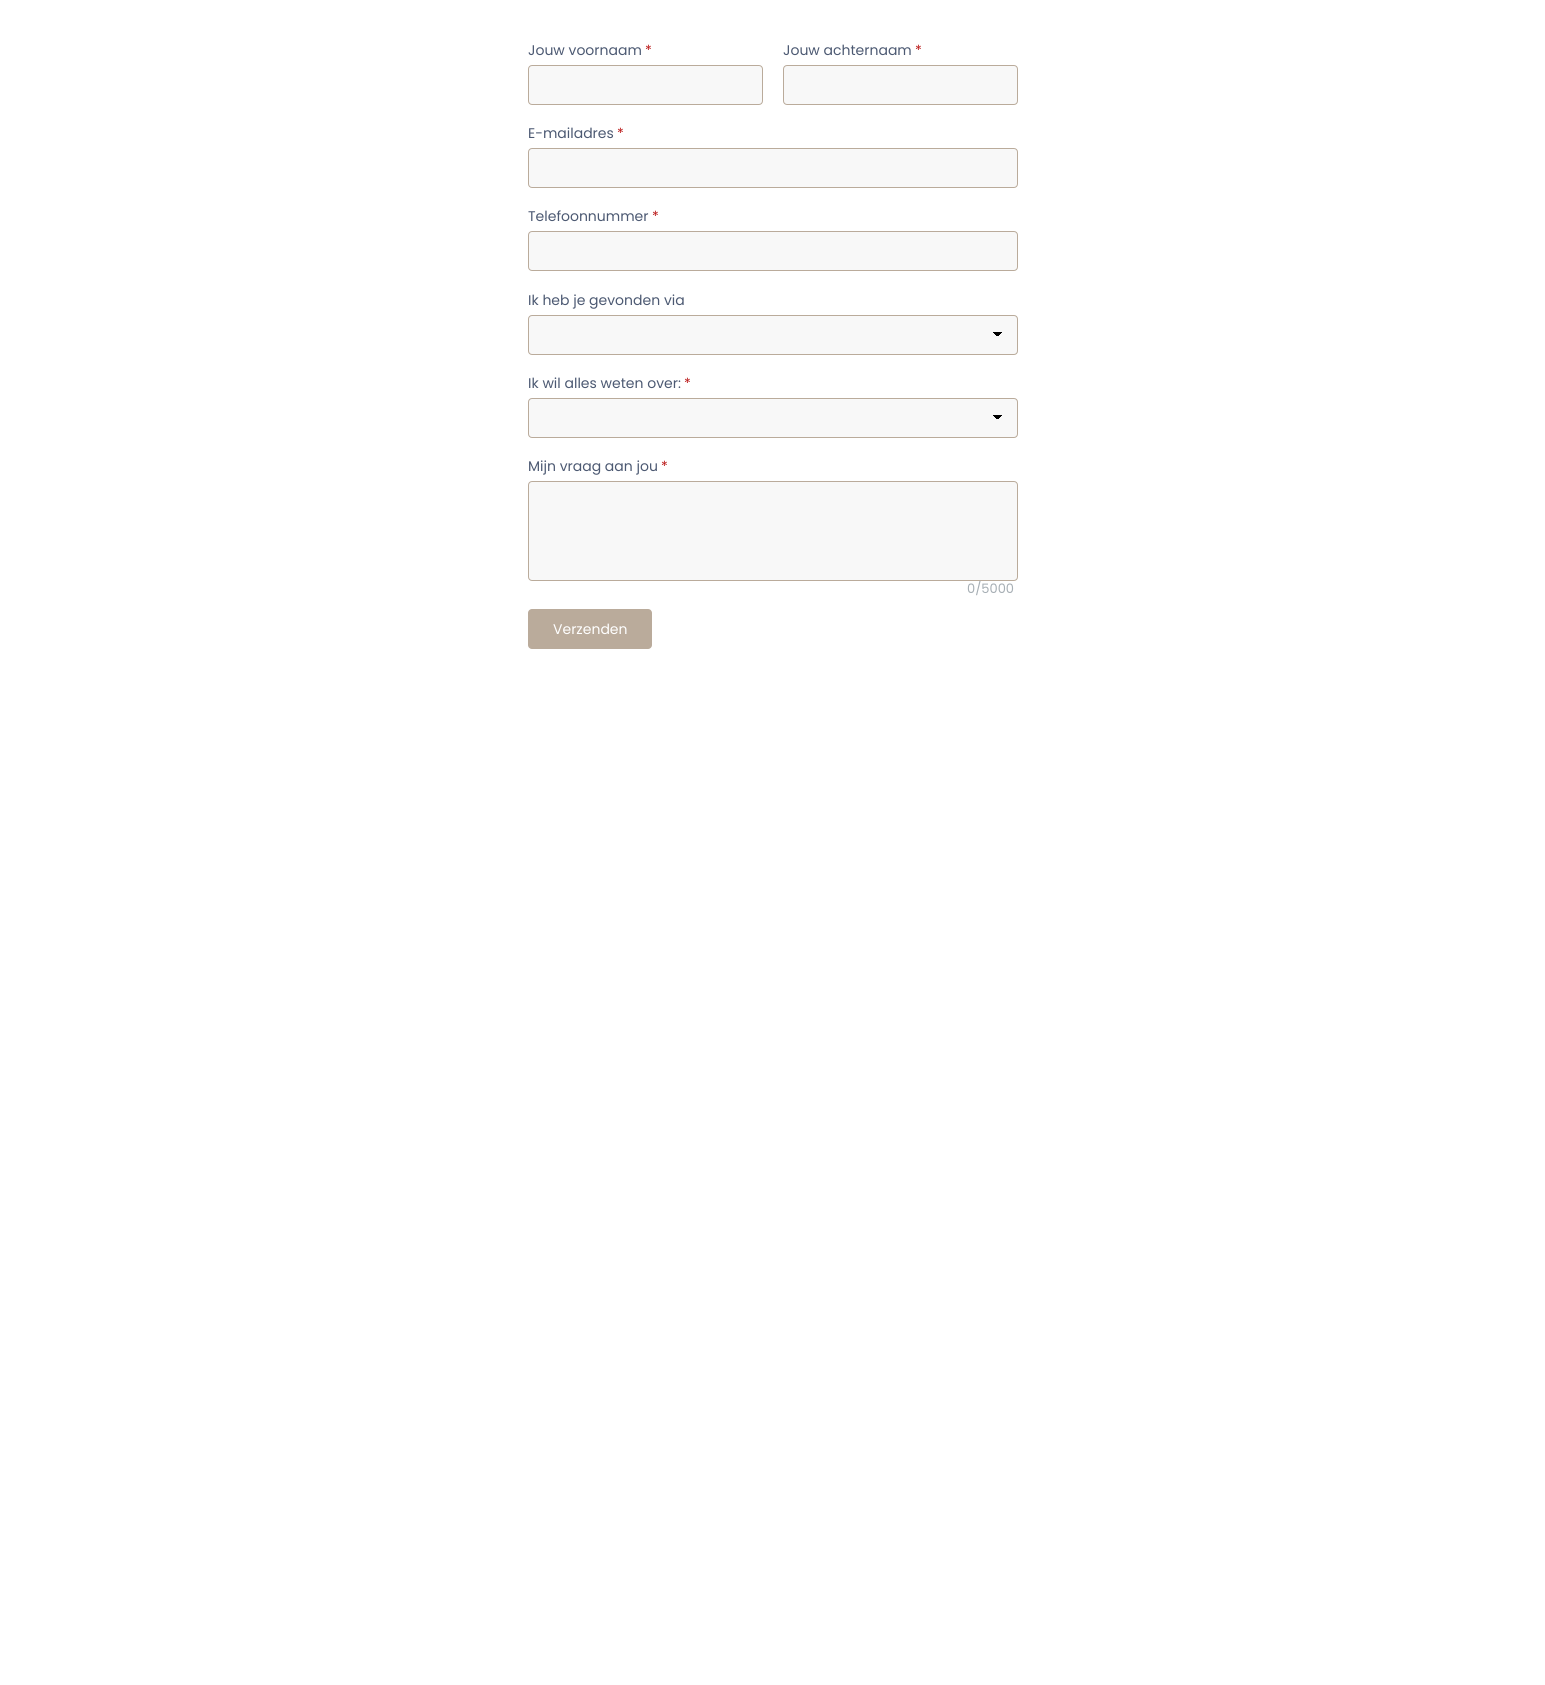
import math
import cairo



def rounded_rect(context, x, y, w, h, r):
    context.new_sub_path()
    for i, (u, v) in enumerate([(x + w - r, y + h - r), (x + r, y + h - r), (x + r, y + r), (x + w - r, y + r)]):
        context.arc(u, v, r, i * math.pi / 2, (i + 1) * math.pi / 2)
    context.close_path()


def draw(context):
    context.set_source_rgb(1, 1, 1)
    context.paint()
    context.set_source_rgb(248 / 255, 248 / 255, 248 / 255)
    rounded_rect(context, 528.5, 65.5, 234, 39, 3.5)
    context.fill_preserve()
    context.set_source_rgb(186 / 255, 171 / 255, 155 / 255)
    context.set_line_width(1)
    context.stroke()
    context.set_source_rgb(248 / 255, 248 / 255, 248 / 255)
    rounded_rect(context, 783.5, 65.5, 234, 39, 3.5)
    context.fill_preserve()
    context.set_source_rgb(186 / 255, 171 / 255, 155 / 255)
    context.stroke()
    context.set_source_rgb(248 / 255, 248 / 255, 248 / 255)
    rounded_rect(context, 528.5, 148.5, 489, 39, 3.5)
    context.fill_preserve()
    context.set_source_rgb(186 / 255, 171 / 255, 155 / 255)
    context.stroke()
    context.set_source_rgb(248 / 255, 248 / 255, 248 / 255)
    rounded_rect(context, 528.5, 231.5, 489, 39, 3.5)
    context.fill_preserve()
    context.set_source_rgb(186 / 255, 171 / 255, 155 / 255)
    context.stroke()
    context.set_source_rgb(248 / 255, 248 / 255, 248 / 255)
    rounded_rect(context, 528, 315, 490, 40, 4)
    context.fill()
    gradient = cairo.LinearGradient(997, 332, 1002, 337)
    gradient.add_color_stop_rgba(0.5, 0, 0, 0, 1)
    gradient.add_color_stop_rgba(0.5, 248 / 255, 248 / 255, 248 / 255, 1)
    context.set_source(gradient)
    context.rectangle(997, 332, 5, 4)
    context.fill()
    gradient = cairo.LinearGradient(992, 337, 997, 332)
    gradient.add_color_stop_rgba(0.5, 248 / 255, 248 / 255, 248 / 255, 1)
    gradient.add_color_stop_rgba(0.51, 0, 0, 0, 1)
    context.set_source(gradient)
    context.rectangle(992, 332, 5, 4)
    context.fill()
    rounded_rect(context, 528.5, 315.5, 489, 39, 3.5)
    context.set_source_rgb(186 / 255, 171 / 255, 155 / 255)
    context.stroke()
    context.set_source_rgb(248 / 255, 248 / 255, 248 / 255)
    rounded_rect(context, 528, 398, 490, 40, 4)
    context.fill()
    gradient = cairo.LinearGradient(997, 415, 1002, 420)
    gradient.add_color_stop_rgba(0.5, 0, 0, 0, 1)
    gradient.add_color_stop_rgba(0.5, 248 / 255, 248 / 255, 248 / 255, 1)
    context.set_source(gradient)
    context.rectangle(997, 415, 5, 4)
    context.fill()
    gradient = cairo.LinearGradient(992, 420, 997, 415)
    gradient.add_color_stop_rgba(0.5, 248 / 255, 248 / 255, 248 / 255, 1)
    gradient.add_color_stop_rgba(0.51, 0, 0, 0, 1)
    context.set_source(gradient)
    context.rectangle(992, 415, 5, 4)
    context.fill()
    rounded_rect(context, 528.5, 398.5, 489, 39, 3.5)
    context.set_source_rgb(186 / 255, 171 / 255, 155 / 255)
    context.stroke()
    context.set_source_rgb(248 / 255, 248 / 255, 248 / 255)
    rounded_rect(context, 528.5, 481.5, 489, 99, 3.5)
    context.fill_preserve()
    context.set_source_rgb(186 / 255, 171 / 255, 155 / 255)
    context.stroke()
    rounded_rect(context, 528, 609, 124, 40, 4)
    context.fill()
    context.select_font_face("Poppins")
    context.set_font_size(14)
    context.set_source_rgb(76 / 255, 89 / 255, 114 / 255)
    context.move_to(528, 55)
    context.show_text("Jouw voornaam")
    context.set_source_rgb(186 / 255, 24 / 255, 24 / 255)
    context.move_to(645, 55)
    context.show_text("*")
    context.set_source_rgb(76 / 255, 89 / 255, 114 / 255)
    context.move_to(783, 55)
    context.show_text("Jouw achternaam")
    context.set_source_rgb(186 / 255, 24 / 255, 24 / 255)
    context.move_to(915, 55)
    context.show_text("*")
    context.set_source_rgb(76 / 255, 89 / 255, 114 / 255)
    context.move_to(528, 138)
    context.show_text("E-mailadres")
    context.set_source_rgb(186 / 255, 24 / 255, 24 / 255)
    context.move_to(617, 138)
    context.show_text("*")
    context.set_source_rgb(76 / 255, 89 / 255, 114 / 255)
    context.move_to(528, 221)
    context.show_text("Telefoonnummer")
    context.set_source_rgb(186 / 255, 24 / 255, 24 / 255)
    context.move_to(652, 221)
    context.show_text("*")
    context.set_source_rgb(76 / 255, 89 / 255, 114 / 255)
    context.move_to(528, 305)
    context.show_text("Ik heb je gevonden via")
    context.move_to(528, 388)
    context.show_text("Ik wil alles weten over:")
    context.set_source_rgb(186 / 255, 24 / 255, 24 / 255)
    context.move_to(684, 388)
    context.show_text("*")
    context.set_source_rgb(76 / 255, 89 / 255, 114 / 255)
    context.move_to(528, 471)
    context.show_text("Mijn vraag aan jou")
    context.set_source_rgb(186 / 255, 24 / 255, 24 / 255)
    context.move_to(661, 471)
    context.show_text("*")
    context.set_font_size(13)
    context.set_source_rgb(166 / 255, 174 / 255, 180 / 255)
    context.move_to(967, 593)
    context.show_text("0/5000")
    context.set_font_size(14)
    context.set_source_rgb(1, 1, 1)
    context.move_to(553, 634)
    context.show_text("Verzenden")


surface = cairo.ImageSurface(cairo.Format.RGB24, 1545, 1685)
context = cairo.Context(surface)
options = cairo.FontOptions()
options.set_hint_metrics(cairo.HintMetrics.OFF)
options.set_hint_style(cairo.HintStyle.NONE)
context.set_font_options(options)
context.set_miter_limit(4)
draw(context)
surface.write_to_png("out.png")
